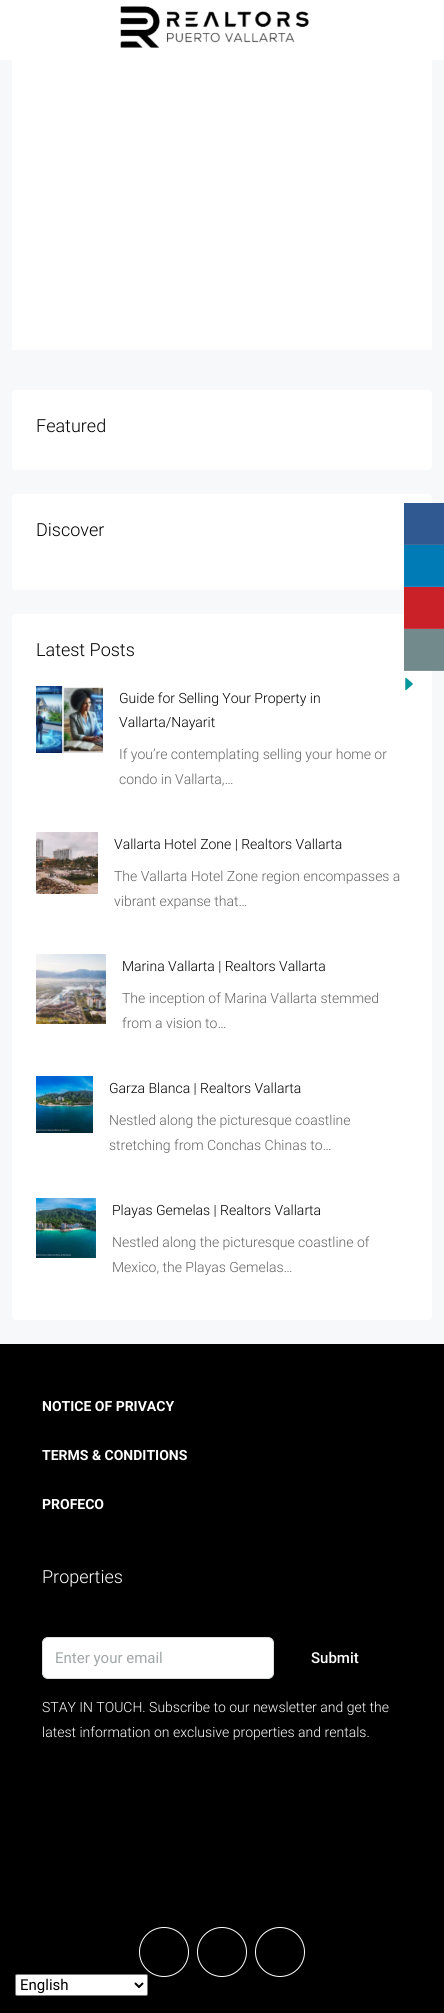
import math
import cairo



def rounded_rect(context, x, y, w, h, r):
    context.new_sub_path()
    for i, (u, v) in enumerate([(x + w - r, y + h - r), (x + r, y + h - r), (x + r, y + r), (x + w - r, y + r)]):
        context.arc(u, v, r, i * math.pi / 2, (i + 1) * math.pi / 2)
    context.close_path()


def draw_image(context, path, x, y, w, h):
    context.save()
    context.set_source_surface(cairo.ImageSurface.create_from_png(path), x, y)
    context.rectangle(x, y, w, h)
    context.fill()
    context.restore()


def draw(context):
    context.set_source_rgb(247 / 255, 248 / 255, 249 / 255)
    context.paint()
    context.set_source_rgb(1, 1, 1)
    context.rectangle(0, 0, 444, 60)
    context.fill()
    draw_image(context, "images/1.png", 120, 6, 189, 42)
    context.rectangle(12, 60, 420, 290)
    context.fill()
    rounded_rect(context, 12, 390, 420, 80, 4)
    context.fill()
    rounded_rect(context, 12, 494, 420, 96, 4)
    context.fill()
    rounded_rect(context, 12, 614, 420, 706, 4)
    context.fill()
    draw_image(context, "images/2.png", 36, 686, 67, 67)
    draw_image(context, "images/3.png", 36, 832, 62, 62)
    draw_image(context, "images/4.png", 36, 954, 70, 70)
    draw_image(context, "images/5.png", 36, 1076, 57, 57)
    draw_image(context, "images/6.png", 36, 1198, 60, 60)
    context.set_source_rgb(48 / 255, 88 / 255, 145 / 255)
    context.rectangle(404, 503, 40, 41)
    context.fill()
    context.set_source_rgb(69 / 255, 105 / 255, 156 / 255)
    context.rectangle(404, 544, 40, 1)
    context.fill()
    context.set_source_rgb(0, 123 / 255, 182 / 255)
    context.rectangle(404, 545, 40, 41)
    context.fill()
    context.set_source_rgb(26 / 255, 136 / 255, 189 / 255)
    context.rectangle(404, 586, 40, 1)
    context.fill()
    context.set_source_rgb(202 / 255, 32 / 255, 39 / 255)
    context.rectangle(404, 587, 40, 41)
    context.fill()
    context.set_source_rgb(207 / 255, 54 / 255, 61 / 255)
    context.rectangle(404, 628, 40, 1)
    context.fill()
    context.set_source_rgb(115 / 255, 138 / 255, 141 / 255)
    context.rectangle(404, 629, 40, 41)
    context.fill()
    context.set_source_rgb(129 / 255, 150 / 255, 152 / 255)
    context.rectangle(404, 670, 40, 1)
    context.fill()
    draw_image(context, "images/7.png", 405, 677, 8, 14)
    context.set_source_rgb(0, 0, 0)
    context.rectangle(0, 1344, 444, 669)
    context.fill()
    context.set_source_rgb(1, 1, 1)
    rounded_rect(context, 42.5, 1637.5, 231, 41, 5.5)
    context.fill_preserve()
    context.set_source_rgb(220 / 255, 224 / 255, 224 / 255)
    context.set_line_width(1)
    context.stroke()
    context.arc(164, 1952, 24.5, 0, 2 * math.pi)
    context.set_source_rgb(1, 1, 1)
    context.stroke()
    context.arc(222, 1952, 24.5, 0, 2 * math.pi)
    context.stroke()
    context.arc(280, 1952, 24.5, 0, 2 * math.pi)
    context.stroke()
    rounded_rect(context, 15.5, 1974.5, 132, 21, 1.5)
    context.fill_preserve()
    context.set_source_rgb(118 / 255, 118 / 255, 118 / 255)
    context.stroke()
    context.new_path()
    context.move_to(135, 1983)
    context.line_to(139, 1987)
    context.line_to(143, 1983)
    context.set_source_rgb(0, 0, 0)
    context.set_line_width(2)
    context.stroke()
    context.select_font_face("Roboto Light")
    context.set_font_size(18)
    context.move_to(36, 432)
    context.show_text("Featured")
    context.move_to(36, 536)
    context.show_text("Discover")
    context.move_to(36, 656)
    context.show_text("Latest Posts")
    context.set_font_size(14)
    context.move_to(119, 703)
    context.show_text("Guide for Selling Your Property in")
    context.move_to(119, 727)
    context.show_text("Vallarta/Nayarit")
    context.set_source_rgb(99 / 255, 99 / 255, 99 / 255)
    context.move_to(119, 759)
    context.show_text("If you’re contemplating selling your home or")
    context.move_to(119, 784)
    context.show_text("condo in Vallarta,…")
    context.set_source_rgb(0, 0, 0)
    context.move_to(114, 849)
    context.show_text("Vallarta Hotel Zone | Realtors Vallarta")
    context.set_source_rgb(99 / 255, 99 / 255, 99 / 255)
    context.move_to(114, 881)
    context.show_text("The Vallarta Hotel Zone region encompasses a")
    context.move_to(114, 906)
    context.show_text("vibrant expanse that…")
    context.set_source_rgb(0, 0, 0)
    context.move_to(122, 971)
    context.show_text("Marina Vallarta | Realtors Vallarta")
    context.set_source_rgb(99 / 255, 99 / 255, 99 / 255)
    context.move_to(122, 1003)
    context.show_text("The inception of Marina Vallarta stemmed")
    context.move_to(122, 1028)
    context.show_text("from a vision to…")
    context.set_source_rgb(0, 0, 0)
    context.move_to(109, 1093)
    context.show_text("Garza Blanca | Realtors Vallarta")
    context.set_source_rgb(99 / 255, 99 / 255, 99 / 255)
    context.move_to(109, 1125)
    context.show_text("Nestled along the picturesque coastline")
    context.move_to(109, 1150)
    context.show_text("stretching from Conchas Chinas to…")
    context.set_source_rgb(0, 0, 0)
    context.move_to(112, 1215)
    context.show_text("Playas Gemelas | Realtors Vallarta")
    context.set_source_rgb(99 / 255, 99 / 255, 99 / 255)
    context.move_to(112, 1247)
    context.show_text("Nestled along the picturesque coastline of")
    context.move_to(112, 1272)
    context.show_text("Mexico, the Playas Gemelas…")
    context.select_font_face("Roboto", cairo.FontSlant.NORMAL, cairo.FontWeight.BOLD)
    context.set_source_rgb(1, 1, 1)
    context.move_to(42, 1411)
    context.show_text("NOTICE OF PRIVACY")
    context.move_to(42, 1460)
    context.show_text("TERMS & CONDITIONS")
    context.move_to(42, 1509)
    context.show_text("PROFECO")
    context.select_font_face("Roboto Light")
    context.set_font_size(18)
    context.move_to(42, 1583)
    context.show_text("Properties")
    context.select_font_face("Roboto")
    context.set_font_size(15)
    context.set_source_rgb(161 / 255, 167 / 255, 168 / 255)
    context.move_to(55, 1663)
    context.show_text("Enter your email")
    context.select_font_face("Roboto Medium")
    context.set_source_rgb(1, 1, 1)
    context.move_to(311, 1663)
    context.show_text("Submit")
    context.select_font_face("Roboto Light")
    context.set_font_size(14)
    context.move_to(42, 1712)
    context.show_text("STAY IN TOUCH. Subscribe to our newsletter and get the")
    context.move_to(42, 1737)
    context.show_text("latest information on exclusive properties and rentals.")
    context.select_font_face("Roboto")
    context.set_font_size(15)
    context.set_source_rgb(0, 0, 0)
    context.move_to(20, 1990)
    context.show_text("English")


surface = cairo.ImageSurface(cairo.Format.RGB24, 444, 2013)
context = cairo.Context(surface)
options = cairo.FontOptions()
options.set_hint_metrics(cairo.HintMetrics.OFF)
options.set_hint_style(cairo.HintStyle.NONE)
context.set_font_options(options)
context.set_miter_limit(4)
draw(context)
surface.write_to_png("out.png")
